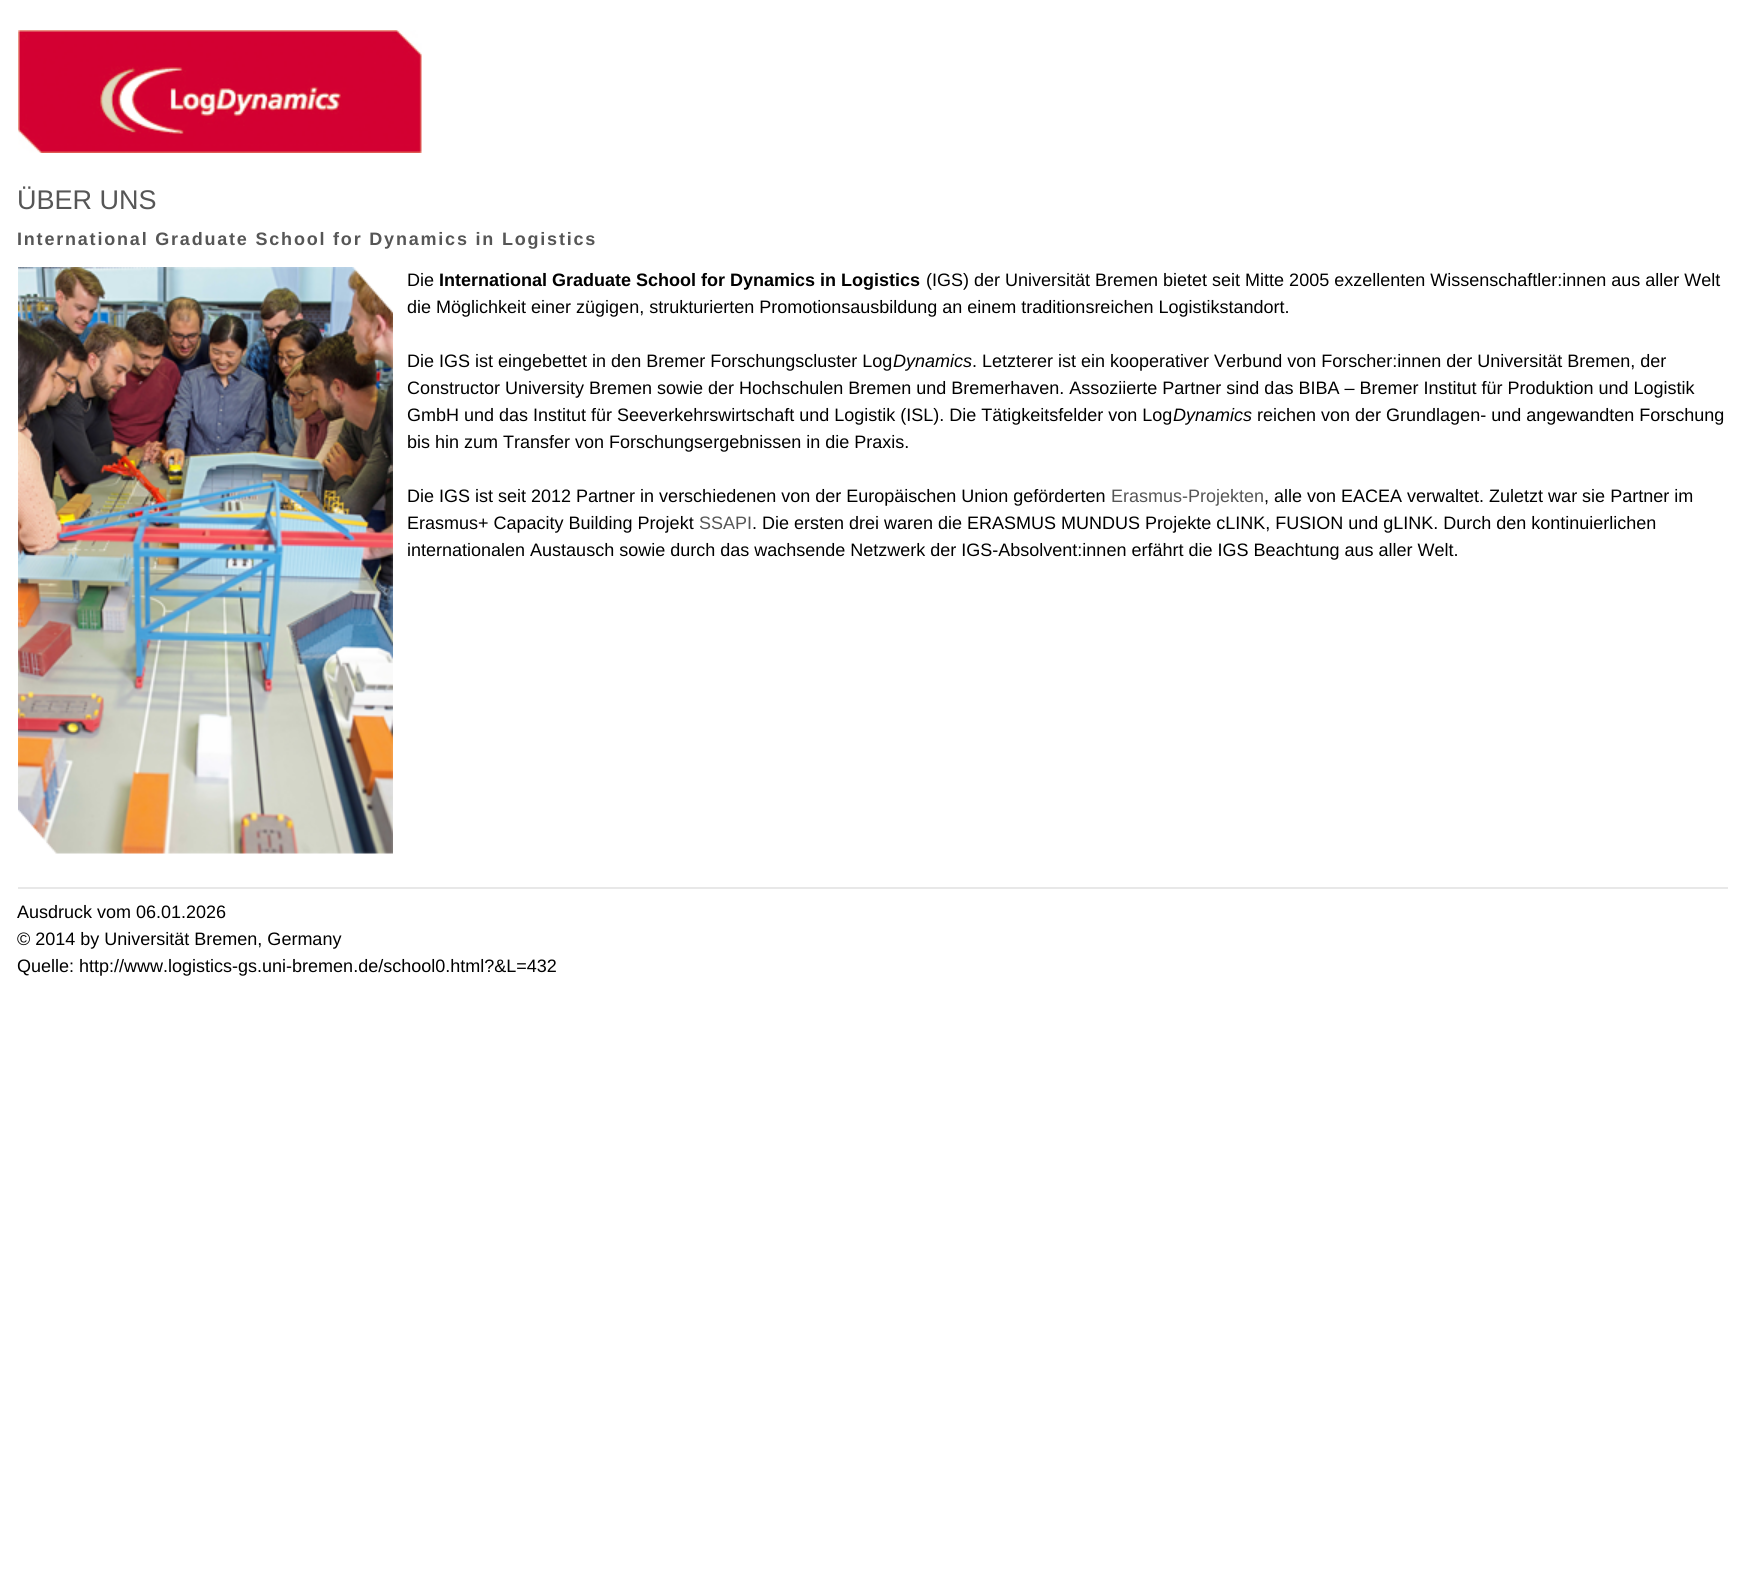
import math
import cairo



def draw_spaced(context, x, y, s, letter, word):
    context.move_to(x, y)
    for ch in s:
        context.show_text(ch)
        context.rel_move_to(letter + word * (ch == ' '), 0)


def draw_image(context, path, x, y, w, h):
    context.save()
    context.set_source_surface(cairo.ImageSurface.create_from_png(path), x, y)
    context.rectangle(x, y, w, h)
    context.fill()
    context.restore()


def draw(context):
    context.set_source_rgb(1, 1, 1)
    context.paint()
    draw_image(context, "images/1.png", 18, 30, 404, 123)
    draw_image(context, "images/2.png", 18, 267, 375, 587)
    context.set_source_rgb(232 / 255, 232 / 255, 232 / 255)
    context.rectangle(18, 887, 1710, 2)
    context.fill()
    context.select_font_face("Liberation Sans")
    context.set_font_size(27)
    context.set_source_rgb(86 / 255, 86 / 255, 86 / 255)
    context.move_to(17, 209)
    context.show_text("ÜBER UNS")
    context.select_font_face("Liberation Sans", cairo.FontSlant.NORMAL, cairo.FontWeight.BOLD)
    context.set_font_size(18)
    draw_spaced(context, 17, 245, "International Graduate School for Dynamics in Logistics", 1.8, 0)
    context.select_font_face("Liberation Sans")
    context.set_source_rgb(0, 0, 0)
    context.move_to(407, 286)
    context.show_text("Die")
    context.select_font_face("Liberation Sans", cairo.FontSlant.NORMAL, cairo.FontWeight.BOLD)
    context.move_to(439, 286)
    context.show_text("International Graduate School for Dynamics in Logistics")
    context.select_font_face("Liberation Sans")
    context.move_to(926, 286)
    context.show_text("(IGS) der Universität Bremen bietet seit Mitte 2005 exzellenten Wissenschaftler:innen aus aller Welt")
    context.move_to(407, 313)
    context.show_text("die Möglichkeit einer zügigen, strukturierten Promotionsausbildung an einem traditionsreichen Logistikstandort.")
    context.move_to(407, 367)
    context.show_text("Die IGS ist eingebettet in den Bremer Forschungscluster Log")
    context.select_font_face("Liberation Sans", cairo.FontSlant.ITALIC)
    context.move_to(893, 367)
    context.show_text("Dynamics")
    context.select_font_face("Liberation Sans")
    context.move_to(972, 367)
    context.show_text(". Letzterer ist ein kooperativer Verbund von Forscher:innen der Universität Bremen, der")
    context.move_to(407, 394)
    context.show_text("Constructor University Bremen sowie der Hochschulen Bremen und Bremerhaven. Assoziierte Partner sind das BIBA – Bremer Institut für Produktion und Logistik")
    context.move_to(407, 421)
    context.show_text("GmbH und das Institut für Seeverkehrswirtschaft und Logistik (ISL). Die Tätigkeitsfelder von Log")
    context.select_font_face("Liberation Sans", cairo.FontSlant.ITALIC)
    context.move_to(1173, 421)
    context.show_text("Dynamics")
    context.select_font_face("Liberation Sans")
    context.move_to(1257, 421)
    context.show_text("reichen von der Grundlagen- und angewandten Forschung")
    context.move_to(407, 448)
    context.show_text("bis hin zum Transfer von Forschungsergebnissen in die Praxis.")
    context.move_to(407, 502)
    context.show_text("Die IGS ist seit 2012 Partner in verschiedenen von der Europäischen Union geförderten")
    context.set_source_rgb(86 / 255, 86 / 255, 86 / 255)
    context.move_to(1111, 502)
    context.show_text("Erasmus-Projekten")
    context.set_source_rgb(0, 0, 0)
    context.move_to(1264, 502)
    context.show_text(", alle von EACEA verwaltet. Zuletzt war sie Partner im")
    context.move_to(407, 529)
    context.show_text("Erasmus+ Capacity Building Projekt")
    context.set_source_rgb(86 / 255, 86 / 255, 86 / 255)
    context.move_to(699, 529)
    context.show_text("SSAPI")
    context.set_source_rgb(0, 0, 0)
    context.move_to(752, 529)
    context.show_text(". Die ersten drei waren die ERASMUS MUNDUS Projekte cLINK, FUSION und gLINK. Durch den kontinuierlichen")
    context.move_to(407, 556)
    context.show_text("internationalen Austausch sowie durch das wachsende Netzwerk der IGS-Absolvent:innen erfährt die IGS Beachtung aus aller Welt.")
    context.move_to(17, 918)
    context.show_text("Ausdruck vom 06.01.2026")
    context.move_to(17, 945)
    context.show_text("© 2014 by Universität Bremen, Germany")
    context.move_to(17, 972)
    context.show_text("Quelle: http://www.logistics-gs.uni-bremen.de/school0.html?&L=432")


surface = cairo.ImageSurface(cairo.Format.RGB24, 1746, 1587)
context = cairo.Context(surface)
options = cairo.FontOptions()
options.set_hint_metrics(cairo.HintMetrics.OFF)
options.set_hint_style(cairo.HintStyle.NONE)
context.set_font_options(options)
context.set_miter_limit(4)
draw(context)
surface.write_to_png("out.png")
